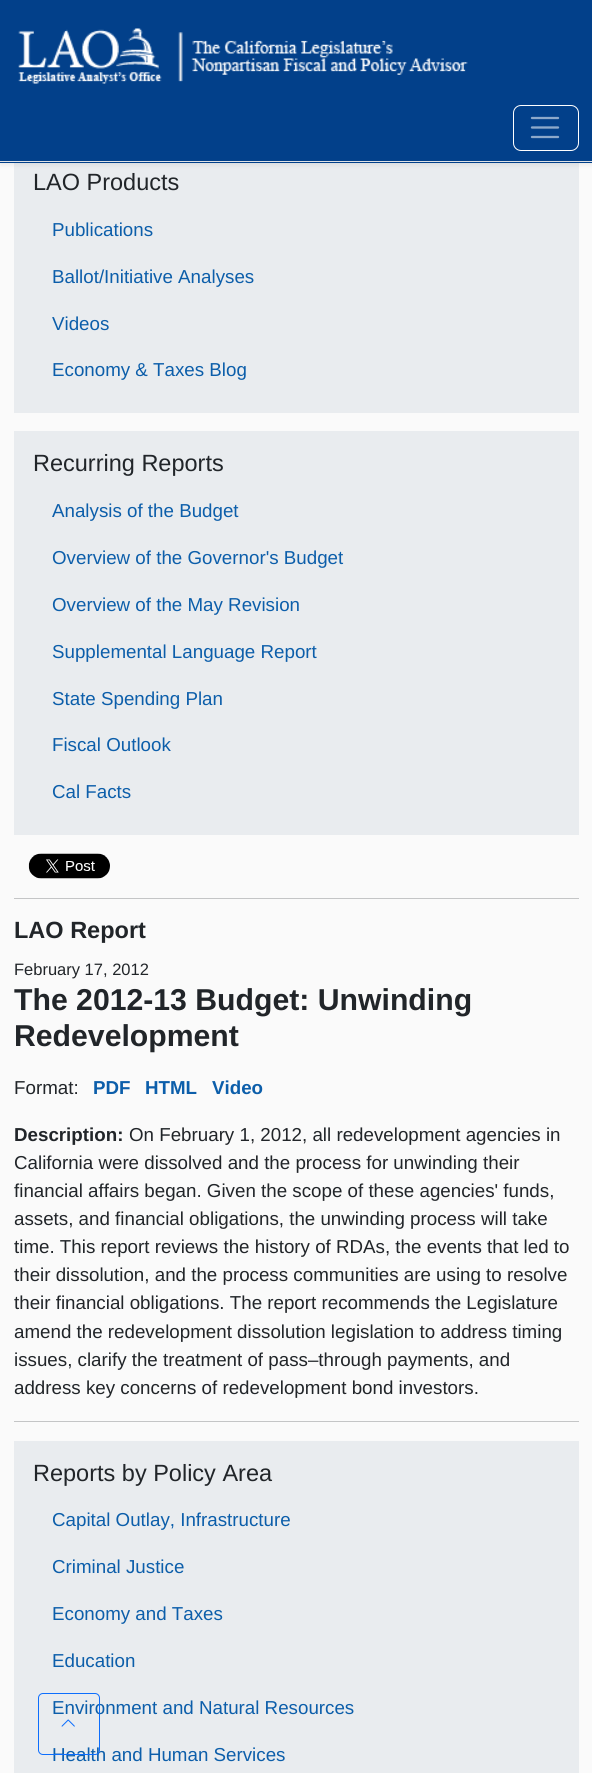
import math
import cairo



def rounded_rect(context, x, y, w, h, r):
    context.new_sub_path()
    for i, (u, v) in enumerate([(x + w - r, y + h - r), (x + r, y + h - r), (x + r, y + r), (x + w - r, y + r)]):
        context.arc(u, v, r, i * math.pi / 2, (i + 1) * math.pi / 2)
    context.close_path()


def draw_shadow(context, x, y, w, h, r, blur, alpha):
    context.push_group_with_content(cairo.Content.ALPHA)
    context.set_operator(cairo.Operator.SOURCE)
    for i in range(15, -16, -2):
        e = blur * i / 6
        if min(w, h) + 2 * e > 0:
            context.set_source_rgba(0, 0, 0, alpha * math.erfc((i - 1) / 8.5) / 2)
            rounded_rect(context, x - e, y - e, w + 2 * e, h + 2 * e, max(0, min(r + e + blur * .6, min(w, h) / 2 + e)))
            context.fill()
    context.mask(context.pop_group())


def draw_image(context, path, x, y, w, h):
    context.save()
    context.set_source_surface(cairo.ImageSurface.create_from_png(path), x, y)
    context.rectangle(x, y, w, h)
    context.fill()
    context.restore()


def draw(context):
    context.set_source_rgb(250 / 255, 250 / 255, 250 / 255)
    context.paint()
    context.set_source_rgb(233 / 255, 236 / 255, 239 / 255)
    context.rectangle(14, 163, 565, 250)
    context.fill()
    context.set_source_rgb(0, 0, 0)
    draw_shadow(context, 0, 3, 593, 162, 0, 2.5, 0.07)
    context.set_source_rgb(2 / 255, 64 / 255, 138 / 255)
    context.rectangle(0, 0, 592, 163)
    context.fill()
    context.set_source_rgb(222 / 255, 226 / 255, 230 / 255)
    context.rectangle(0, 161, 592, 1)
    context.fill()
    draw_image(context, "images/1.png", 18, 28, 450, 56)
    rounded_rect(context, 513.5, 105.5, 65, 45, 7.5)
    context.set_source_rgb(1, 1, 1)
    context.set_line_width(1)
    context.stroke()
    context.new_path()
    context.move_to(532, 118)
    context.line_to(558, 118)
    context.move_to(532, 127.5)
    context.line_to(558, 127.5)
    context.move_to(532, 137)
    context.line_to(558, 137)
    context.set_source_rgb(141 / 255, 169 / 255, 202 / 255)
    context.set_line_width(2.3)
    context.set_line_cap(cairo.LineCap.ROUND)
    context.stroke()
    context.set_source_rgb(233 / 255, 236 / 255, 239 / 255)
    context.rectangle(14, 431, 565, 404)
    context.fill()
    draw_image(context, "images/2.png", 28, 853, 82, 26)
    context.set_source_rgb(196 / 255, 197 / 255, 198 / 255)
    context.rectangle(14, 898, 565, 1)
    context.fill()
    context.rectangle(14, 1421, 565, 1)
    context.fill()
    context.set_source_rgb(233 / 255, 236 / 255, 239 / 255)
    context.rectangle(14, 1441, 565, 332)
    context.fill()
    context.select_font_face("Liberation Sans")
    context.set_font_size(23.5)
    context.set_source_rgb(33 / 255, 37 / 255, 41 / 255)
    context.move_to(33, 190)
    context.show_text("LAO Products")
    context.set_font_size(18.75)
    context.set_source_rgb(12 / 255, 94 / 255, 170 / 255)
    context.move_to(52, 236)
    context.show_text("Publications")
    context.move_to(52, 283)
    context.show_text("Ballot/Initiative Analyses")
    context.move_to(52, 330)
    context.show_text("Videos")
    context.move_to(52, 376)
    context.show_text("Economy & Taxes Blog")
    context.set_font_size(23.5)
    context.set_source_rgb(33 / 255, 37 / 255, 41 / 255)
    context.move_to(33, 471)
    context.show_text("Recurring Reports")
    context.set_font_size(18.75)
    context.set_source_rgb(12 / 255, 94 / 255, 170 / 255)
    context.move_to(52, 517)
    context.show_text("Analysis of the Budget")
    context.move_to(52, 564)
    context.show_text("Overview of the Governor's Budget")
    context.move_to(52, 611)
    context.show_text("Overview of the May Revision")
    context.move_to(52, 658)
    context.show_text("Supplemental Language Report")
    context.move_to(52, 705)
    context.show_text("State Spending Plan")
    context.move_to(52, 751)
    context.show_text("Fiscal Outlook")
    context.move_to(52, 798)
    context.show_text("Cal Facts")
    context.select_font_face("Liberation Sans", cairo.FontSlant.NORMAL, cairo.FontWeight.BOLD)
    context.set_font_size(23.5)
    context.set_source_rgb(33 / 255, 37 / 255, 41 / 255)
    context.move_to(14, 938)
    context.show_text("LAO Report")
    context.select_font_face("Liberation Sans")
    context.set_font_size(16.5)
    context.move_to(14, 975)
    context.show_text("February 17, 2012")
    context.select_font_face("Liberation Sans", cairo.FontSlant.NORMAL, cairo.FontWeight.BOLD)
    context.set_font_size(30.2)
    context.move_to(14, 1010)
    context.show_text("The 2012-13 Budget: Unwinding")
    context.move_to(14, 1046)
    context.show_text("Redevelopment")
    context.select_font_face("Liberation Sans")
    context.set_font_size(18.75)
    context.move_to(14, 1094)
    context.show_text("Format:")
    context.select_font_face("Liberation Sans", cairo.FontSlant.NORMAL, cairo.FontWeight.BOLD)
    context.set_source_rgb(12 / 255, 94 / 255, 170 / 255)
    context.move_to(93, 1094)
    context.show_text("PDF")
    context.move_to(145, 1094)
    context.show_text("HTML")
    context.move_to(212, 1094)
    context.show_text("Video")
    context.set_source_rgb(33 / 255, 37 / 255, 41 / 255)
    context.move_to(14, 1141)
    context.show_text("Description:")
    context.select_font_face("Liberation Sans")
    context.move_to(129, 1141)
    context.show_text("On February 1, 2012, all redevelopment agencies in")
    context.move_to(14, 1169)
    context.show_text("California were dissolved and the process for unwinding their")
    context.move_to(14, 1197)
    context.show_text("financial affairs began. Given the scope of these agencies' funds,")
    context.move_to(14, 1225)
    context.show_text("assets, and financial obligations, the unwinding process will take")
    context.move_to(14, 1253)
    context.show_text("time. This report reviews the history of RDAs, the events that led to")
    context.move_to(14, 1281)
    context.show_text("their dissolution, and the process communities are using to resolve")
    context.move_to(14, 1309)
    context.show_text("their financial obligations. The report recommends the Legislature")
    context.move_to(14, 1338)
    context.show_text("amend the redevelopment dissolution legislation to address timing")
    context.move_to(14, 1366)
    context.show_text("issues, clarify the treatment of pass–through payments, and")
    context.move_to(14, 1394)
    context.show_text("address key concerns of redevelopment bond investors.")
    context.set_font_size(23.5)
    context.move_to(33, 1481)
    context.show_text("Reports by Policy Area")
    context.set_font_size(18.75)
    context.set_source_rgb(12 / 255, 94 / 255, 170 / 255)
    context.move_to(52, 1526)
    context.show_text("Capital Outlay, Infrastructure")
    context.move_to(52, 1573)
    context.show_text("Criminal Justice")
    context.move_to(52, 1620)
    context.show_text("Economy and Taxes")
    context.move_to(52, 1667)
    context.show_text("Education")
    context.move_to(52, 1714)
    context.show_text("Environment and Natural Resources")
    context.move_to(52, 1761)
    context.show_text("Health and Human Services")
    rounded_rect(context, 38.5, 1693.5, 61, 61, 4.5)
    context.set_source_rgb(13 / 255, 110 / 255, 253 / 255)
    context.set_line_width(1)
    context.set_line_cap(cairo.LineCap.BUTT)
    context.stroke()
    draw_image(context, "images/3.png", 61, 1719, 14, 8)


surface = cairo.ImageSurface(cairo.Format.RGB24, 592, 1773)
context = cairo.Context(surface)
options = cairo.FontOptions()
options.set_hint_metrics(cairo.HintMetrics.OFF)
options.set_hint_style(cairo.HintStyle.NONE)
context.set_font_options(options)
context.set_miter_limit(4)
draw(context)
surface.write_to_png("out.png")
